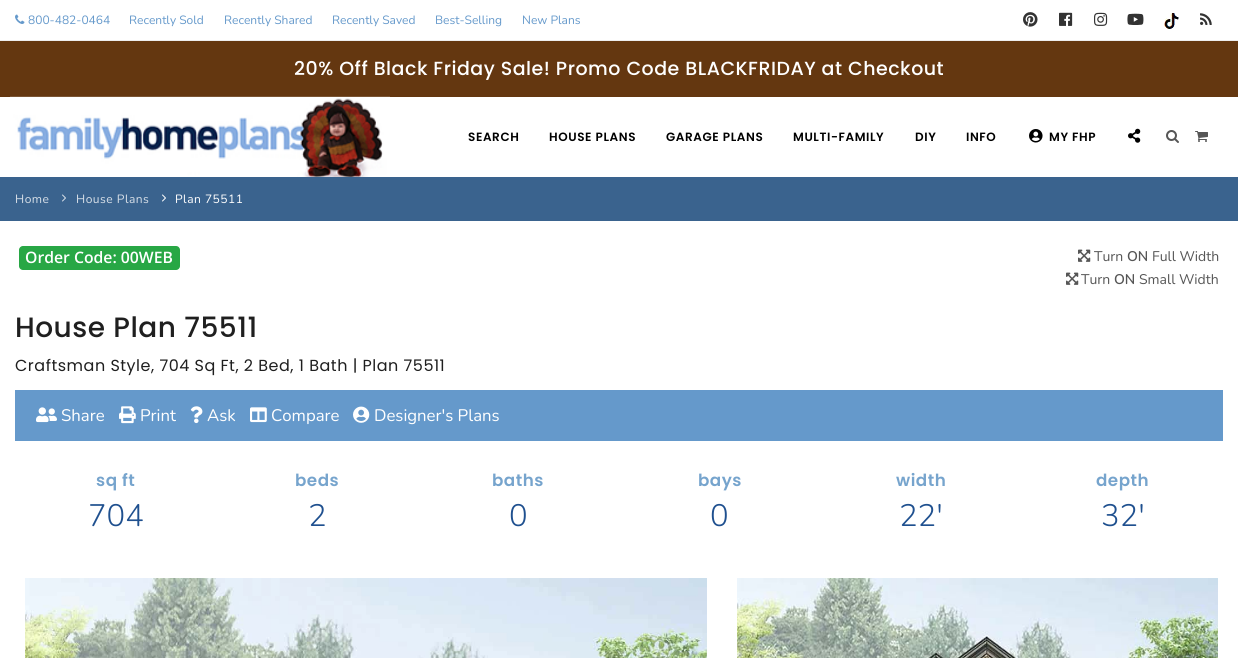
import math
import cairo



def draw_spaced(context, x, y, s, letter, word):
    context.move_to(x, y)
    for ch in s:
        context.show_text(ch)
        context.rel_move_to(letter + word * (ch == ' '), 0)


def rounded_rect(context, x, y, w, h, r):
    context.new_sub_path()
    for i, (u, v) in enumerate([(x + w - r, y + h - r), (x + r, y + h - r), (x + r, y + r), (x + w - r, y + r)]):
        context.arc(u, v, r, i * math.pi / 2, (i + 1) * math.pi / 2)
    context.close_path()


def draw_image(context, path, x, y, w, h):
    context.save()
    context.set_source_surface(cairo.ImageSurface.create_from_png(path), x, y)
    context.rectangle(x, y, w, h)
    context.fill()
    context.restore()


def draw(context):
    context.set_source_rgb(1, 1, 1)
    context.paint()
    context.set_source_rgb(238 / 255, 238 / 255, 238 / 255)
    context.rectangle(0, 40, 1238, 1)
    context.fill()
    draw_image(context, "images/1.png", 15, 14, 10, 10)
    draw_image(context, "images/2.png", 1023, 12, 15, 15)
    draw_image(context, "images/3.png", 1059, 12, 14, 14)
    draw_image(context, "images/4.png", 1094, 12, 14, 14)
    draw_image(context, "images/5.png", 1127, 13, 17, 12)
    draw_image(context, "images/6.png", 1164, 13, 15, 16)
    draw_image(context, "images/7.png", 1200, 13, 12, 12)
    context.set_source_rgb(100 / 255, 55 / 255, 16 / 255)
    context.rectangle(0, 41, 1238, 56)
    context.fill()
    draw_image(context, "images/8.png", 10, 96, 380, 81)
    draw_image(context, "images/9.png", 1029, 129, 14, 14)
    draw_image(context, "images/10.png", 1128, 128, 13, 15)
    draw_image(context, "images/11.png", 1166, 130, 13, 13)
    draw_image(context, "images/12.png", 1195, 131, 13, 11)
    context.set_source_rgb(58 / 255, 99 / 255, 142 / 255)
    context.rectangle(0, 177, 1238, 44)
    context.fill()
    draw_image(context, "images/13.png", 62, 194, 4, 8)
    draw_image(context, "images/14.png", 162, 194, 4, 8)
    context.set_source_rgb(40 / 255, 167 / 255, 69 / 255)
    rounded_rect(context, 19, 246, 161, 24, 4)
    context.fill()
    draw_image(context, "images/15.png", 1078, 249, 13, 13)
    draw_image(context, "images/15.png", 1066, 272, 13, 13)
    context.set_source_rgb(101 / 255, 153 / 255, 203 / 255)
    context.rectangle(15, 390, 1208, 51)
    context.fill()
    draw_image(context, "images/16.png", 36, 407, 21, 16)
    draw_image(context, "images/17.png", 119, 406, 17, 18)
    draw_image(context, "images/18.png", 190, 406, 13, 18)
    draw_image(context, "images/19.png", 250, 407, 17, 16)
    draw_image(context, "images/20.png", 353, 406, 17, 17)
    draw_image(context, "images/21.png", 25, 578, 682, 80)
    draw_image(context, "images/22.png", 737, 578, 481, 80)
    context.select_font_face("Nunito")
    context.set_font_size(12)
    context.move_to(28, 24)
    context.show_text("800-482-0464")
    context.move_to(129, 24)
    context.show_text("Recently Sold")
    context.move_to(224, 24)
    context.show_text("Recently Shared")
    context.move_to(332, 24)
    context.show_text("Recently Saved")
    context.move_to(435, 24)
    context.show_text("Best-Selling")
    context.move_to(522, 24)
    context.show_text("New Plans")
    context.select_font_face("Poppins Medium")
    context.set_font_size(19)
    context.set_source_rgb(1, 1, 1)
    draw_spaced(context, 294, 75, "20% Off Black Friday Sale! Promo Code BLACKFRIDAY at Checkout", 0.5, 0)
    context.select_font_face("Poppins SemiBold")
    context.set_font_size(12)
    context.set_source_rgb(0, 0, 0)
    draw_spaced(context, 468, 141, "SEARCH", 0.6, 0)
    draw_spaced(context, 549, 141, "HOUSE PLANS", 0.6, 0)
    draw_spaced(context, 666, 141, "GARAGE PLANS", 0.6, 0)
    draw_spaced(context, 793, 141, "MULTI-FAMILY", 0.6, 0)
    draw_spaced(context, 915, 141, "DIY", 0.6, 0)
    draw_spaced(context, 966, 141, "INFO", 0.6, 0)
    draw_spaced(context, 1049, 141, "MY FHP", 0.6, 0)
    context.select_font_face("Nunito")
    context.set_source_rgb(216 / 255, 224 / 255, 232 / 255)
    draw_spaced(context, 15, 203, "Home", 0.5, 0)
    draw_spaced(context, 76, 203, "House Plans", 0.5, 0)
    context.set_source_rgb(1, 1, 1)
    draw_spaced(context, 175, 203, "Plan 75511", 0.5, 0)
    context.select_font_face("Open Sans SemiBold")
    context.set_font_size(15.75)
    context.move_to(25, 263)
    context.show_text("Order Code: 00WEB")
    context.select_font_face("Nunito")
    context.set_font_size(14)
    context.set_source_rgb(86 / 255, 86 / 255, 86 / 255)
    context.move_to(1094, 261)
    context.show_text("Turn")
    context.select_font_face("Nunito SemiBold")
    context.move_to(1127, 261)
    context.show_text("ON")
    context.select_font_face("Nunito")
    context.move_to(1152, 261)
    context.show_text("Full Width")
    context.move_to(1081, 284)
    context.show_text("Turn")
    context.select_font_face("Nunito SemiBold")
    context.move_to(1114, 284)
    context.show_text("ON")
    context.select_font_face("Nunito")
    context.move_to(1139, 284)
    context.show_text("Small Width")
    context.select_font_face("Poppins Medium")
    context.set_font_size(28)
    context.set_source_rgb(31 / 255, 31 / 255, 31 / 255)
    draw_spaced(context, 15, 337, "House Plan 75511", 0.5, 0)
    context.select_font_face("Poppins")
    context.set_font_size(16)
    draw_spaced(context, 15, 371, "Craftsman Style, 704 Sq Ft, 2 Bed, 1 Bath | Plan 75511", 0.5, 0)
    context.select_font_face("Nunito")
    context.set_font_size(16.75)
    context.set_source_rgb(1, 1, 1)
    context.move_to(61, 421)
    context.show_text("Share")
    context.move_to(140, 421)
    context.show_text("Print")
    context.move_to(207, 421)
    context.show_text("Ask")
    context.move_to(271, 421)
    context.show_text("Compare")
    context.move_to(374, 421)
    context.show_text("Designer's Plans")
    context.select_font_face("Poppins SemiBold")
    context.set_source_rgb(118 / 255, 164 / 255, 205 / 255)
    draw_spaced(context, 96, 486, "sq ft", 0.5, 0)
    context.select_font_face("Nunito Light")
    context.set_font_size(31)
    context.set_source_rgb(31 / 255, 80 / 255, 143 / 255)
    context.move_to(88, 526)
    context.show_text("704")
    context.select_font_face("Poppins SemiBold")
    context.set_font_size(16.75)
    context.set_source_rgb(118 / 255, 164 / 255, 205 / 255)
    draw_spaced(context, 295, 486, "beds", 0.5, 0)
    context.select_font_face("Nunito Light")
    context.set_font_size(31)
    context.set_source_rgb(31 / 255, 80 / 255, 143 / 255)
    context.move_to(308, 526)
    context.show_text("2")
    context.select_font_face("Poppins SemiBold")
    context.set_font_size(16.75)
    context.set_source_rgb(118 / 255, 164 / 255, 205 / 255)
    draw_spaced(context, 492, 486, "baths", 0.5, 0)
    context.select_font_face("Nunito Light")
    context.set_font_size(31)
    context.set_source_rgb(31 / 255, 80 / 255, 143 / 255)
    context.move_to(509, 526)
    context.show_text("0")
    context.select_font_face("Poppins SemiBold")
    context.set_font_size(16.75)
    context.set_source_rgb(118 / 255, 164 / 255, 205 / 255)
    draw_spaced(context, 698, 486, "bays", 0.5, 0)
    context.select_font_face("Nunito Light")
    context.set_font_size(31)
    context.set_source_rgb(31 / 255, 80 / 255, 143 / 255)
    context.move_to(710, 526)
    context.show_text("0")
    context.select_font_face("Poppins SemiBold")
    context.set_font_size(16.75)
    context.set_source_rgb(118 / 255, 164 / 255, 205 / 255)
    draw_spaced(context, 896, 486, "width", 0.5, 0)
    context.select_font_face("Nunito Light")
    context.set_font_size(31)
    context.set_source_rgb(31 / 255, 80 / 255, 143 / 255)
    context.move_to(899, 526)
    context.show_text("22'")
    context.select_font_face("Poppins SemiBold")
    context.set_font_size(16.75)
    context.set_source_rgb(118 / 255, 164 / 255, 205 / 255)
    draw_spaced(context, 1096, 486, "depth", 0.5, 0)
    context.select_font_face("Nunito Light")
    context.set_font_size(31)
    context.set_source_rgb(31 / 255, 80 / 255, 143 / 255)
    context.move_to(1101, 526)
    context.show_text("32'")


surface = cairo.ImageSurface(cairo.Format.RGB24, 1238, 658)
context = cairo.Context(surface)
options = cairo.FontOptions()
options.set_hint_metrics(cairo.HintMetrics.OFF)
options.set_hint_style(cairo.HintStyle.NONE)
context.set_font_options(options)
context.set_miter_limit(4)
draw(context)
surface.write_to_png("out.png")
